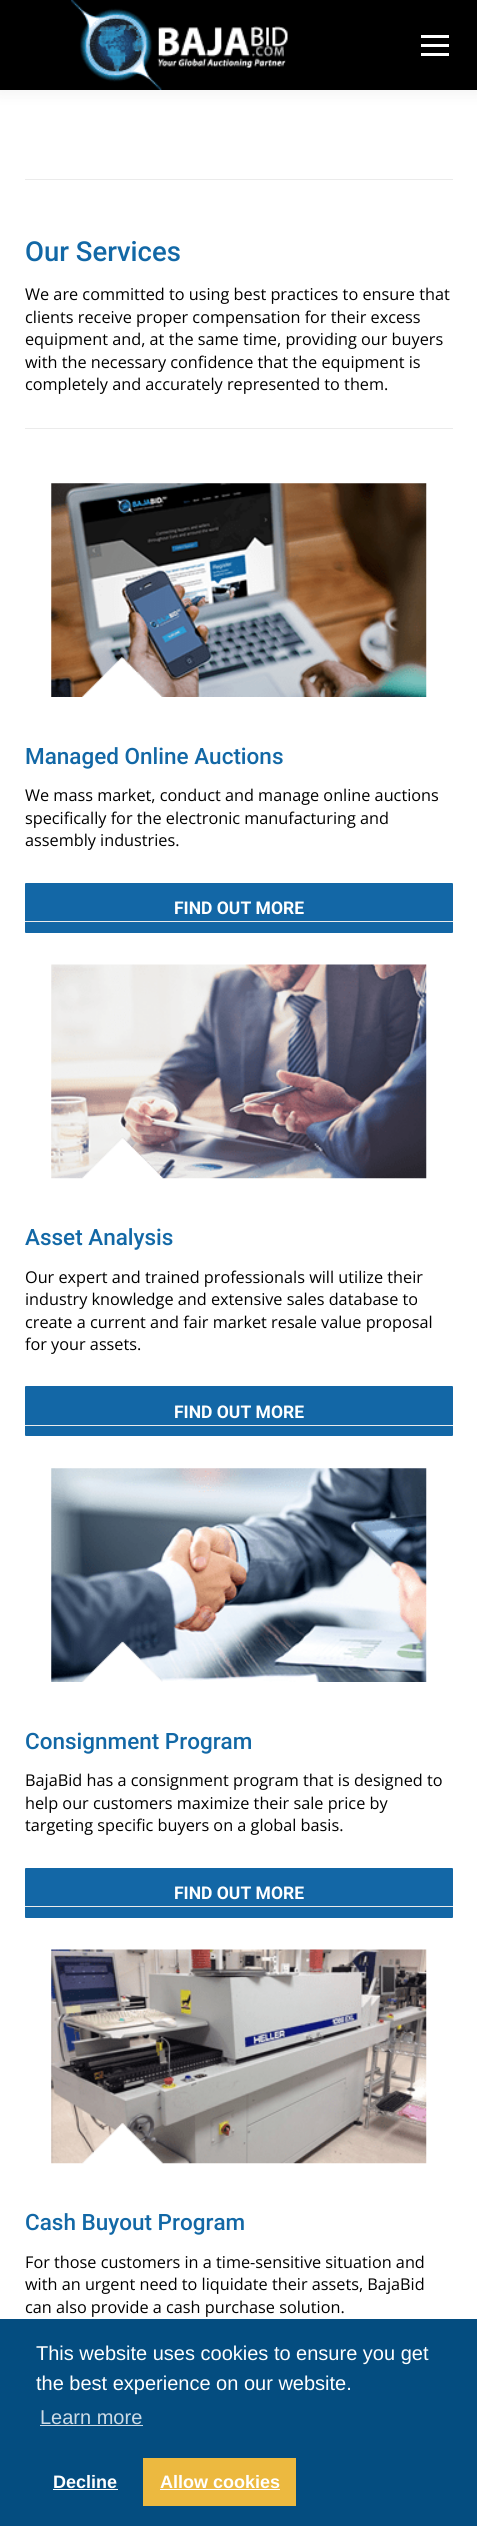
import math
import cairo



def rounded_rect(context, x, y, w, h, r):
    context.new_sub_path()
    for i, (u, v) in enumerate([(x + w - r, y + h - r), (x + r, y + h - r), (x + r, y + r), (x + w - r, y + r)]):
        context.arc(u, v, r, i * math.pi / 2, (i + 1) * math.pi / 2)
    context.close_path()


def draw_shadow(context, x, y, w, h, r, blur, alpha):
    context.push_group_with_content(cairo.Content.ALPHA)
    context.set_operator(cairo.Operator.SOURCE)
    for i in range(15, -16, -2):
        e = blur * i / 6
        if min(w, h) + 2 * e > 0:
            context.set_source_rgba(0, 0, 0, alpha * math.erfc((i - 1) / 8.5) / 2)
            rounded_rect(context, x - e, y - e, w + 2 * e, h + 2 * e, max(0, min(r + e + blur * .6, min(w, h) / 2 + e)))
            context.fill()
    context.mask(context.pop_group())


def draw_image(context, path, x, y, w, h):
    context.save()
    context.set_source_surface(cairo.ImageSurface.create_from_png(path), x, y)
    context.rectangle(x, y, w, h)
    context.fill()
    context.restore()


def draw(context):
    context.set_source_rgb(1, 1, 1)
    context.paint()
    context.set_source_rgb(0, 0, 0)
    draw_shadow(context, -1, -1, 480, 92, 0, 9.5, 0.07)
    context.set_source_rgb(0, 0, 0)
    context.rectangle(0, 0, 477, 90)
    context.fill()
    draw_image(context, "images/1.png", 71, 0, 217, 90)
    context.set_source_rgb(1, 1, 1)
    context.rectangle(421, 35, 28, 3)
    context.fill()
    context.rectangle(421, 44, 28, 3)
    context.fill()
    context.rectangle(421, 53, 28, 3)
    context.fill()
    context.set_source_rgb(235 / 255, 235 / 255, 235 / 255)
    context.rectangle(25, 179, 428, 1)
    context.fill()
    context.rectangle(25, 428, 428, 1)
    context.fill()
    draw_image(context, "images/2.png", 51, 483, 376, 214)
    context.set_source_rgb(19 / 255, 103 / 255, 166 / 255)
    rounded_rect(context, 25, 883, 428, 50, 1)
    context.fill()
    context.set_source_rgb(235 / 255, 235 / 255, 235 / 255)
    context.rectangle(25, 921, 428, 1)
    context.fill()
    draw_image(context, "images/3.png", 51, 964, 376, 215)
    context.set_source_rgb(19 / 255, 103 / 255, 166 / 255)
    rounded_rect(context, 25, 1386, 428, 50, 1)
    context.fill()
    context.set_source_rgb(235 / 255, 235 / 255, 235 / 255)
    context.rectangle(25, 1425, 428, 1)
    context.fill()
    draw_image(context, "images/4.png", 51, 1468, 376, 214)
    context.set_source_rgb(19 / 255, 103 / 255, 166 / 255)
    rounded_rect(context, 25, 1868, 428, 50, 1)
    context.fill()
    context.set_source_rgb(235 / 255, 235 / 255, 235 / 255)
    context.rectangle(25, 1906, 428, 1)
    context.fill()
    draw_image(context, "images/5.png", 51, 1949, 376, 215)
    context.set_source_rgb(4 / 255, 77 / 255, 128 / 255)
    context.rectangle(0, 2319, 477, 207)
    context.fill()
    context.set_source_rgb(205 / 255, 219 / 255, 230 / 255)
    context.rectangle(40, 2425, 103, 1)
    context.fill()
    context.set_source_rgb(1, 1, 1)
    context.rectangle(53, 2489, 65, 1)
    context.fill()
    context.set_source_rgb(236 / 255, 185 / 255, 64 / 255)
    context.rectangle(143, 2458, 153, 48)
    context.fill()
    context.set_source_rgb(1, 1, 1)
    context.rectangle(160, 2489, 120, 1)
    context.fill()
    context.select_font_face("Roboto Medium")
    context.set_font_size(27.5)
    context.set_source_rgb(18 / 255, 104 / 255, 166 / 255)
    context.move_to(25, 261)
    context.show_text("Our Services")
    context.select_font_face("Open Sans")
    context.set_font_size(16.25)
    context.set_source_rgb(0, 0, 0)
    context.move_to(25, 300)
    context.show_text("We are committed to using best practices to ensure that")
    context.move_to(25, 323)
    context.show_text("clients receive proper compensation for their excess")
    context.move_to(25, 345)
    context.show_text("equipment and, at the same time, providing our buyers")
    context.move_to(25, 368)
    context.show_text("with the necessary confidence that the equipment is")
    context.move_to(25, 390)
    context.show_text("completely and accurately represented to them.")
    context.select_font_face("Roboto Medium")
    context.set_font_size(22.5)
    context.set_source_rgb(18 / 255, 104 / 255, 166 / 255)
    context.move_to(25, 764)
    context.show_text("Managed Online Auctions")
    context.select_font_face("Open Sans")
    context.set_font_size(16.25)
    context.set_source_rgb(0, 0, 0)
    context.move_to(25, 801)
    context.show_text("We mass market, conduct and manage online auctions")
    context.move_to(25, 824)
    context.show_text("specifically for the electronic manufacturing and")
    context.move_to(25, 846)
    context.show_text("assembly industries.")
    context.select_font_face("Roboto", cairo.FontSlant.NORMAL, cairo.FontWeight.BOLD)
    context.set_font_size(17.5)
    context.set_source_rgb(1, 1, 1)
    context.move_to(174, 914)
    context.show_text("FIND OUT MORE")
    context.select_font_face("Roboto Medium")
    context.set_font_size(22.5)
    context.set_source_rgb(18 / 255, 104 / 255, 166 / 255)
    context.move_to(25, 1245)
    context.show_text("Asset Analysis")
    context.select_font_face("Open Sans")
    context.set_font_size(16.25)
    context.set_source_rgb(0, 0, 0)
    context.move_to(25, 1283)
    context.show_text("Our expert and trained professionals will utilize their")
    context.move_to(25, 1305)
    context.show_text("industry knowledge and extensive sales database to")
    context.move_to(25, 1328)
    context.show_text("create a current and fair market resale value proposal")
    context.move_to(25, 1350)
    context.show_text("for your assets.")
    context.select_font_face("Roboto", cairo.FontSlant.NORMAL, cairo.FontWeight.BOLD)
    context.set_font_size(17.5)
    context.set_source_rgb(1, 1, 1)
    context.move_to(174, 1418)
    context.show_text("FIND OUT MORE")
    context.select_font_face("Roboto Medium")
    context.set_font_size(22.5)
    context.set_source_rgb(18 / 255, 104 / 255, 166 / 255)
    context.move_to(25, 1749)
    context.show_text("Consignment Program")
    context.select_font_face("Open Sans")
    context.set_font_size(16.25)
    context.set_source_rgb(0, 0, 0)
    context.move_to(25, 1786)
    context.show_text("BajaBid has a consignment program that is designed to")
    context.move_to(25, 1809)
    context.show_text("help our customers maximize their sale price by")
    context.move_to(25, 1831)
    context.show_text("targeting specific buyers on a global basis.")
    context.select_font_face("Roboto", cairo.FontSlant.NORMAL, cairo.FontWeight.BOLD)
    context.set_font_size(17.5)
    context.set_source_rgb(1, 1, 1)
    context.move_to(174, 1899)
    context.show_text("FIND OUT MORE")
    context.select_font_face("Roboto Medium")
    context.set_font_size(22.5)
    context.set_source_rgb(18 / 255, 104 / 255, 166 / 255)
    context.move_to(25, 2230)
    context.show_text("Cash Buyout Program")
    context.select_font_face("Open Sans")
    context.set_font_size(16.25)
    context.set_source_rgb(0, 0, 0)
    context.move_to(25, 2268)
    context.show_text("For those customers in a time-sensitive situation and")
    context.move_to(25, 2290)
    context.show_text("with an urgent need to liquidate their assets, BajaBid")
    context.move_to(25, 2313)
    context.show_text("can also provide a cash purchase solution.")
    context.select_font_face("Liberation Sans")
    context.set_font_size(20)
    context.set_source_rgb(1, 1, 1)
    context.move_to(36, 2360)
    context.show_text("This website uses cookies to ensure you get")
    context.move_to(36, 2390)
    context.show_text("the best experience on our website.")
    context.set_source_rgb(205 / 255, 219 / 255, 230 / 255)
    context.move_to(40, 2424)
    context.show_text("Learn more")
    context.select_font_face("Liberation Sans", cairo.FontSlant.NORMAL, cairo.FontWeight.BOLD)
    context.set_font_size(18)
    context.set_source_rgb(1, 1, 1)
    context.move_to(53, 2488)
    context.show_text("Decline")
    context.move_to(160, 2488)
    context.show_text("Allow cookies")


surface = cairo.ImageSurface(cairo.Format.RGB24, 477, 2526)
context = cairo.Context(surface)
options = cairo.FontOptions()
options.set_hint_metrics(cairo.HintMetrics.OFF)
options.set_hint_style(cairo.HintStyle.NONE)
context.set_font_options(options)
context.set_miter_limit(4)
draw(context)
surface.write_to_png("out.png")
